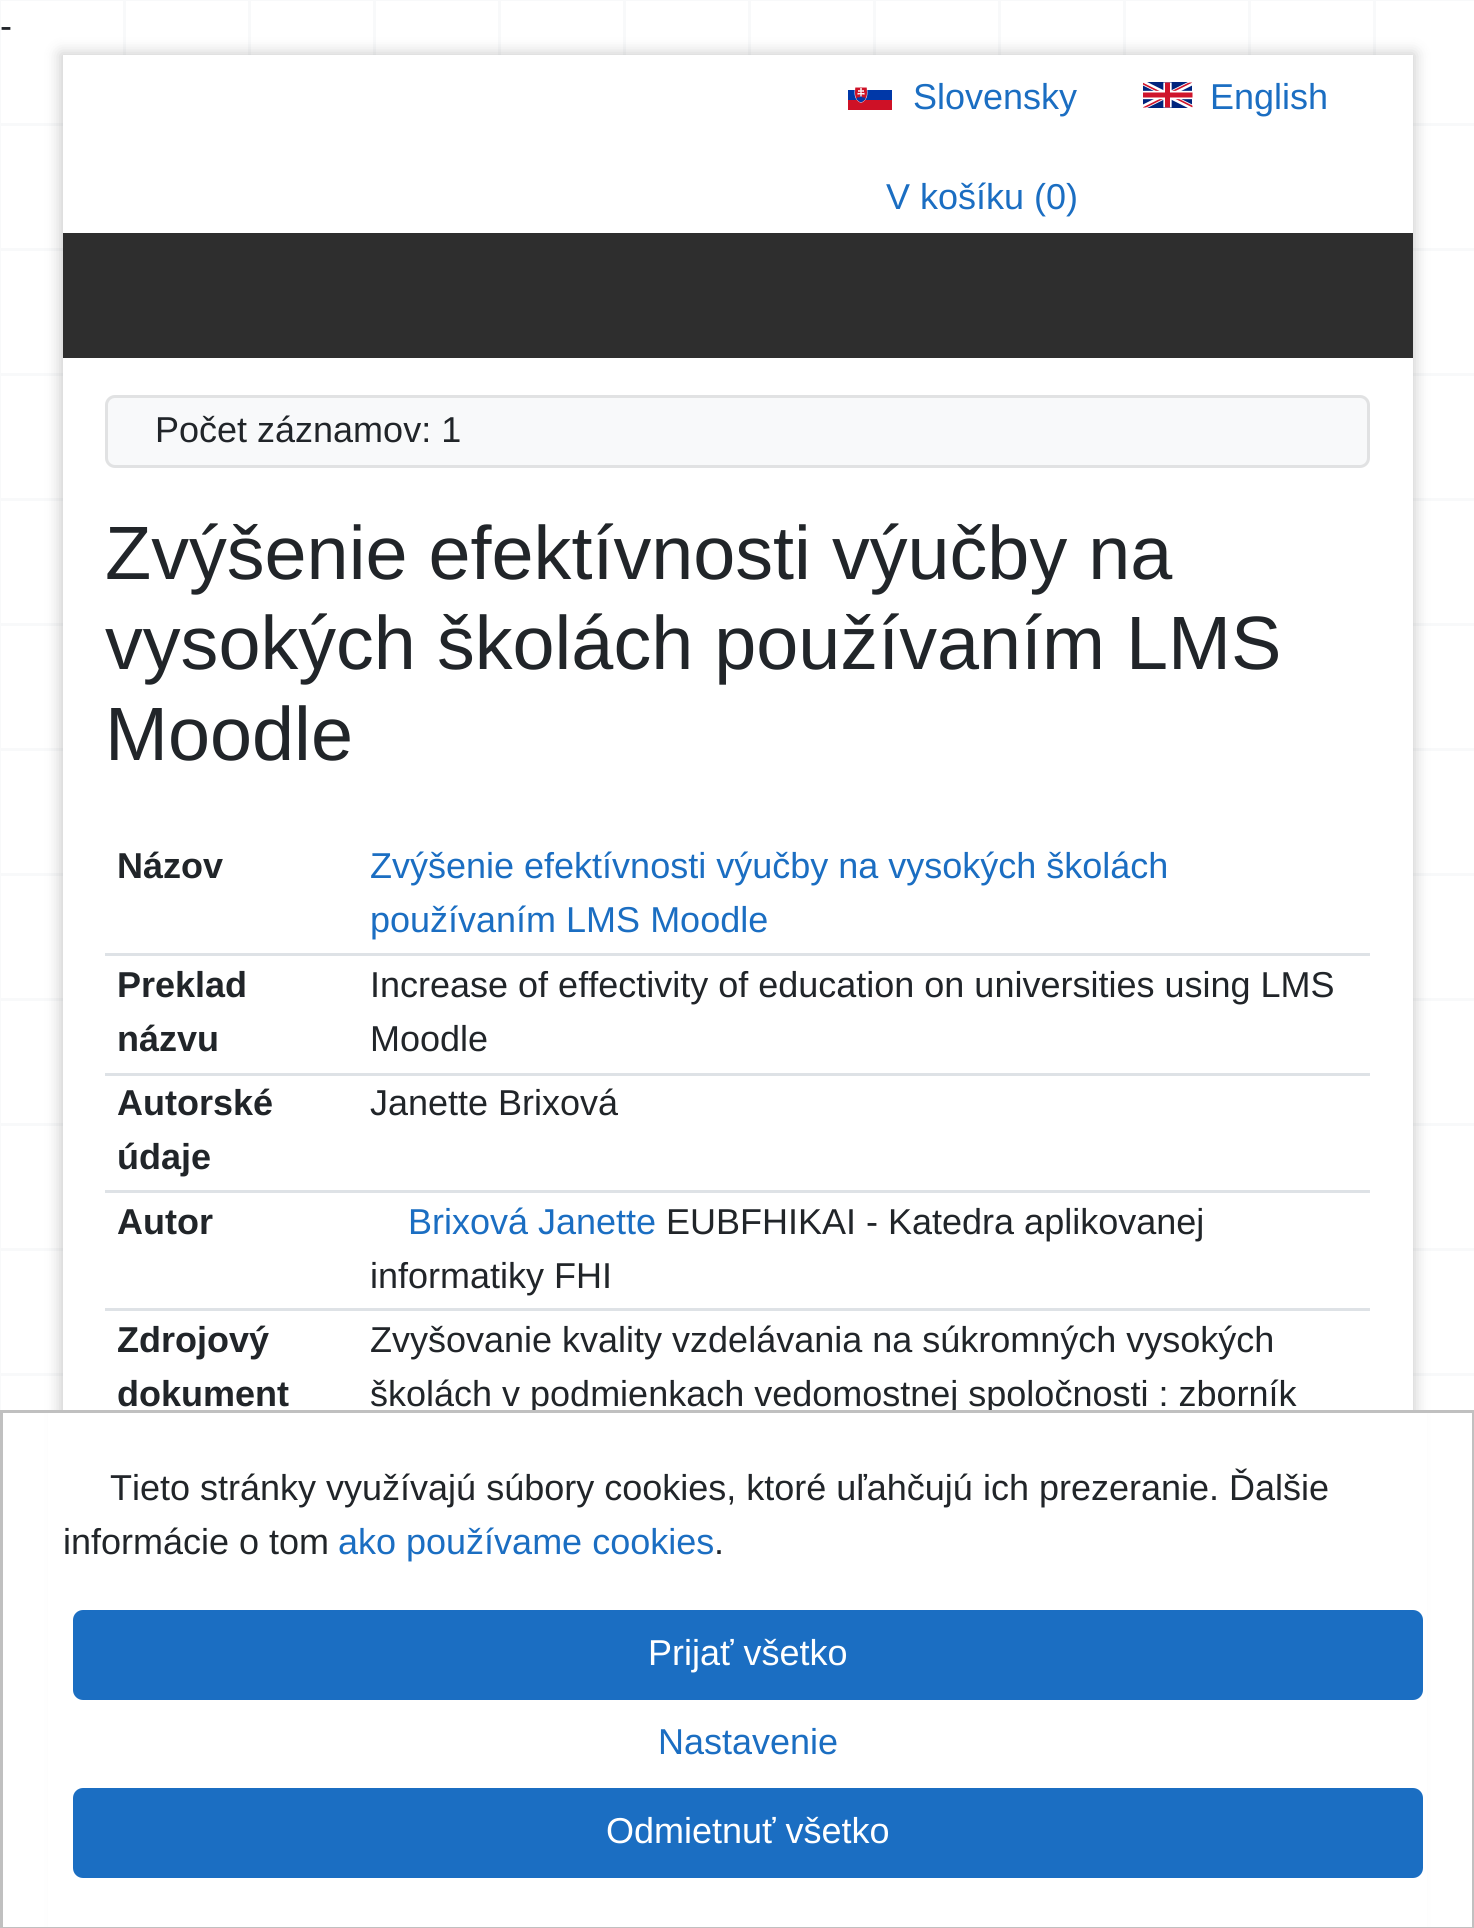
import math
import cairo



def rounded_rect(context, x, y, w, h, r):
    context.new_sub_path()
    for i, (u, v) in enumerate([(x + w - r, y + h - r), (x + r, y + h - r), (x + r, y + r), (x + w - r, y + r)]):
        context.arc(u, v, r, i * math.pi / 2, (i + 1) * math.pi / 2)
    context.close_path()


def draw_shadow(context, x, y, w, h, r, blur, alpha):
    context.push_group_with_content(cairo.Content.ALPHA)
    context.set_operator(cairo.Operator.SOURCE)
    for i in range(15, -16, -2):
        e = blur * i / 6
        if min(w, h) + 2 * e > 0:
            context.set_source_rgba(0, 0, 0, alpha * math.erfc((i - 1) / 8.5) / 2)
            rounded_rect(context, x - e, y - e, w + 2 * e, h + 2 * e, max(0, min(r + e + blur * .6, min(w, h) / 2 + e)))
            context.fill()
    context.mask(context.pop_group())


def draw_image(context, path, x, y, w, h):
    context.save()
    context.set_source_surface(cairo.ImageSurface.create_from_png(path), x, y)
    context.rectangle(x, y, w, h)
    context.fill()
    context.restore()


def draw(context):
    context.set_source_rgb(1, 1, 1)
    context.paint()
    context.set_source_rgb(248 / 255, 249 / 255, 250 / 255)
    context.rectangle(0, 0, 1, 1410)
    context.fill()
    context.rectangle(123, 0, 3, 55)
    context.fill()
    context.rectangle(248, 0, 3, 55)
    context.fill()
    context.rectangle(373, 0, 3, 55)
    context.fill()
    context.rectangle(498, 0, 3, 55)
    context.fill()
    context.rectangle(623, 0, 3, 55)
    context.fill()
    context.rectangle(748, 0, 3, 55)
    context.fill()
    context.rectangle(873, 0, 3, 55)
    context.fill()
    context.rectangle(998, 0, 3, 55)
    context.fill()
    context.rectangle(1123, 0, 3, 55)
    context.fill()
    context.rectangle(1248, 0, 3, 55)
    context.fill()
    context.rectangle(1373, 0, 3, 55)
    context.fill()
    context.rectangle(0, 0, 1474, 1)
    context.fill()
    context.rectangle(0, 123, 1474, 3)
    context.fill()
    context.rectangle(0, 248, 1474, 3)
    context.fill()
    context.rectangle(0, 373, 1474, 3)
    context.fill()
    context.rectangle(0, 498, 1474, 3)
    context.fill()
    context.rectangle(0, 623, 1474, 3)
    context.fill()
    context.rectangle(0, 748, 1474, 3)
    context.fill()
    context.rectangle(0, 873, 1474, 3)
    context.fill()
    context.rectangle(0, 998, 1474, 3)
    context.fill()
    context.rectangle(0, 1123, 1474, 3)
    context.fill()
    context.rectangle(0, 1248, 1474, 3)
    context.fill()
    context.rectangle(0, 1373, 1474, 3)
    context.fill()
    context.set_source_rgb(0, 0, 0)
    draw_shadow(context, 60, 53, 1355, 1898, 0, 7.5, 0.2)
    context.set_source_rgb(1, 1, 1)
    context.rectangle(63, 55, 1350, 1355)
    context.fill()
    draw_image(context, "images/1.png", 848, 87, 44, 23)
    draw_image(context, "images/2.png", 1143, 82, 50, 26)
    context.set_source_rgb(46 / 255, 46 / 255, 46 / 255)
    context.rectangle(63, 233, 1350, 125)
    context.fill()
    context.set_source_rgb(248 / 255, 249 / 255, 250 / 255)
    rounded_rect(context, 105, 395, 1265, 73, 10)
    context.fill()
    rounded_rect(context, 106.5, 396.5, 1262, 70, 8.5)
    context.set_source_rgba(51 / 255, 51 / 255, 51 / 255, 0.12)
    context.set_line_width(3)
    context.stroke()
    context.set_source_rgb(222 / 255, 226 / 255, 230 / 255)
    context.rectangle(105, 953, 1265, 3)
    context.fill()
    context.rectangle(105, 1073, 1265, 3)
    context.fill()
    context.rectangle(105, 1190, 1265, 3)
    context.fill()
    context.rectangle(105, 1308, 1265, 3)
    context.fill()
    context.select_font_face("Liberation Sans")
    context.set_font_size(36)
    context.set_source_rgb(33 / 255, 37 / 255, 41 / 255)
    context.move_to(0, 38)
    context.show_text("-")
    context.set_source_rgb(27 / 255, 110 / 255, 194 / 255)
    context.move_to(913, 109)
    context.show_text("Slovensky")
    context.move_to(1210, 109)
    context.show_text("English")
    context.move_to(886, 209)
    context.show_text("V košíku (0)")
    context.set_source_rgb(33 / 255, 37 / 255, 41 / 255)
    context.move_to(155, 442)
    context.show_text("Počet záznamov: 1")
    context.set_font_size(75.6)
    context.move_to(105, 579)
    context.show_text("Zvýšenie efektívnosti výučby na")
    context.move_to(105, 669)
    context.show_text("vysokých školách používaním LMS")
    context.move_to(105, 760)
    context.show_text("Moodle")
    context.select_font_face("Liberation Sans", cairo.FontSlant.NORMAL, cairo.FontWeight.BOLD)
    context.set_font_size(36)
    context.move_to(117, 878)
    context.show_text("Názov")
    context.select_font_face("Liberation Sans")
    context.set_source_rgb(27 / 255, 110 / 255, 194 / 255)
    context.move_to(370, 878)
    context.show_text("Zvýšenie efektívnosti výučby na vysokých školách")
    context.move_to(370, 932)
    context.show_text("používaním LMS Moodle")
    context.select_font_face("Liberation Sans", cairo.FontSlant.NORMAL, cairo.FontWeight.BOLD)
    context.set_source_rgb(33 / 255, 37 / 255, 41 / 255)
    context.move_to(117, 997)
    context.show_text("Preklad")
    context.move_to(117, 1051)
    context.show_text("názvu")
    context.select_font_face("Liberation Sans")
    context.move_to(370, 997)
    context.show_text("Increase of effectivity of education on universities using LMS")
    context.move_to(370, 1051)
    context.show_text("Moodle")
    context.select_font_face("Liberation Sans", cairo.FontSlant.NORMAL, cairo.FontWeight.BOLD)
    context.move_to(117, 1115)
    context.show_text("Autorské")
    context.move_to(117, 1169)
    context.show_text("údaje")
    context.select_font_face("Liberation Sans")
    context.move_to(370, 1115)
    context.show_text("Janette Brixová")
    context.select_font_face("Liberation Sans", cairo.FontSlant.NORMAL, cairo.FontWeight.BOLD)
    context.move_to(117, 1234)
    context.show_text("Autor")
    context.select_font_face("Liberation Sans")
    context.set_source_rgb(27 / 255, 110 / 255, 194 / 255)
    context.move_to(408, 1234)
    context.show_text("Brixová Janette")
    context.set_source_rgb(33 / 255, 37 / 255, 41 / 255)
    context.move_to(666, 1234)
    context.show_text("EUBFHIKAI - Katedra aplikovanej")
    context.move_to(370, 1288)
    context.show_text("informatiky FHI")
    context.select_font_face("Liberation Sans", cairo.FontSlant.NORMAL, cairo.FontWeight.BOLD)
    context.move_to(117, 1352)
    context.show_text("Zdrojový")
    context.move_to(117, 1406)
    context.show_text("dokument")
    context.select_font_face("Liberation Sans")
    context.move_to(370, 1352)
    context.show_text("Zvyšovanie kvality vzdelávania na súkromných vysokých")
    context.move_to(370, 1406)
    context.show_text("školách v podmienkach vedomostnej spoločnosti : zborník")
    context.set_source_rgb(1, 1, 1)
    context.rectangle(48, 1413, 1379, 514)
    context.fill()
    context.rectangle(1.5, 1411.5, 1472, 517)
    context.set_source_rgb(192 / 255, 192 / 255, 192 / 255)
    context.stroke()
    context.set_source_rgb(33 / 255, 37 / 255, 41 / 255)
    context.move_to(110, 1500)
    context.show_text("Tieto stránky využívajú súbory cookies, ktoré uľahčujú ich prezeranie. Ďalšie")
    context.move_to(63, 1554)
    context.show_text("informácie o tom")
    context.set_source_rgb(27 / 255, 110 / 255, 194 / 255)
    context.move_to(338, 1554)
    context.show_text("ako používame cookies")
    context.set_source_rgb(33 / 255, 37 / 255, 41 / 255)
    context.move_to(714, 1554)
    context.show_text(".")
    context.set_source_rgb(27 / 255, 110 / 255, 194 / 255)
    rounded_rect(context, 74.5, 1611.5, 1347, 87, 8.5)
    context.fill_preserve()
    context.stroke()
    context.set_source_rgb(1, 1, 1)
    context.move_to(648, 1665)
    context.show_text("Prijať všetko")
    context.set_source_rgb(27 / 255, 110 / 255, 194 / 255)
    context.move_to(658, 1754)
    context.show_text("Nastavenie")
    rounded_rect(context, 74.5, 1789.5, 1347, 87, 8.5)
    context.fill_preserve()
    context.stroke()
    context.set_source_rgb(1, 1, 1)
    context.move_to(606, 1843)
    context.show_text("Odmietnuť všetko")


surface = cairo.ImageSurface(cairo.Format.RGB24, 1474, 1928)
context = cairo.Context(surface)
options = cairo.FontOptions()
options.set_hint_metrics(cairo.HintMetrics.OFF)
options.set_hint_style(cairo.HintStyle.NONE)
context.set_font_options(options)
context.set_miter_limit(4)
draw(context)
surface.write_to_png("out.png")
